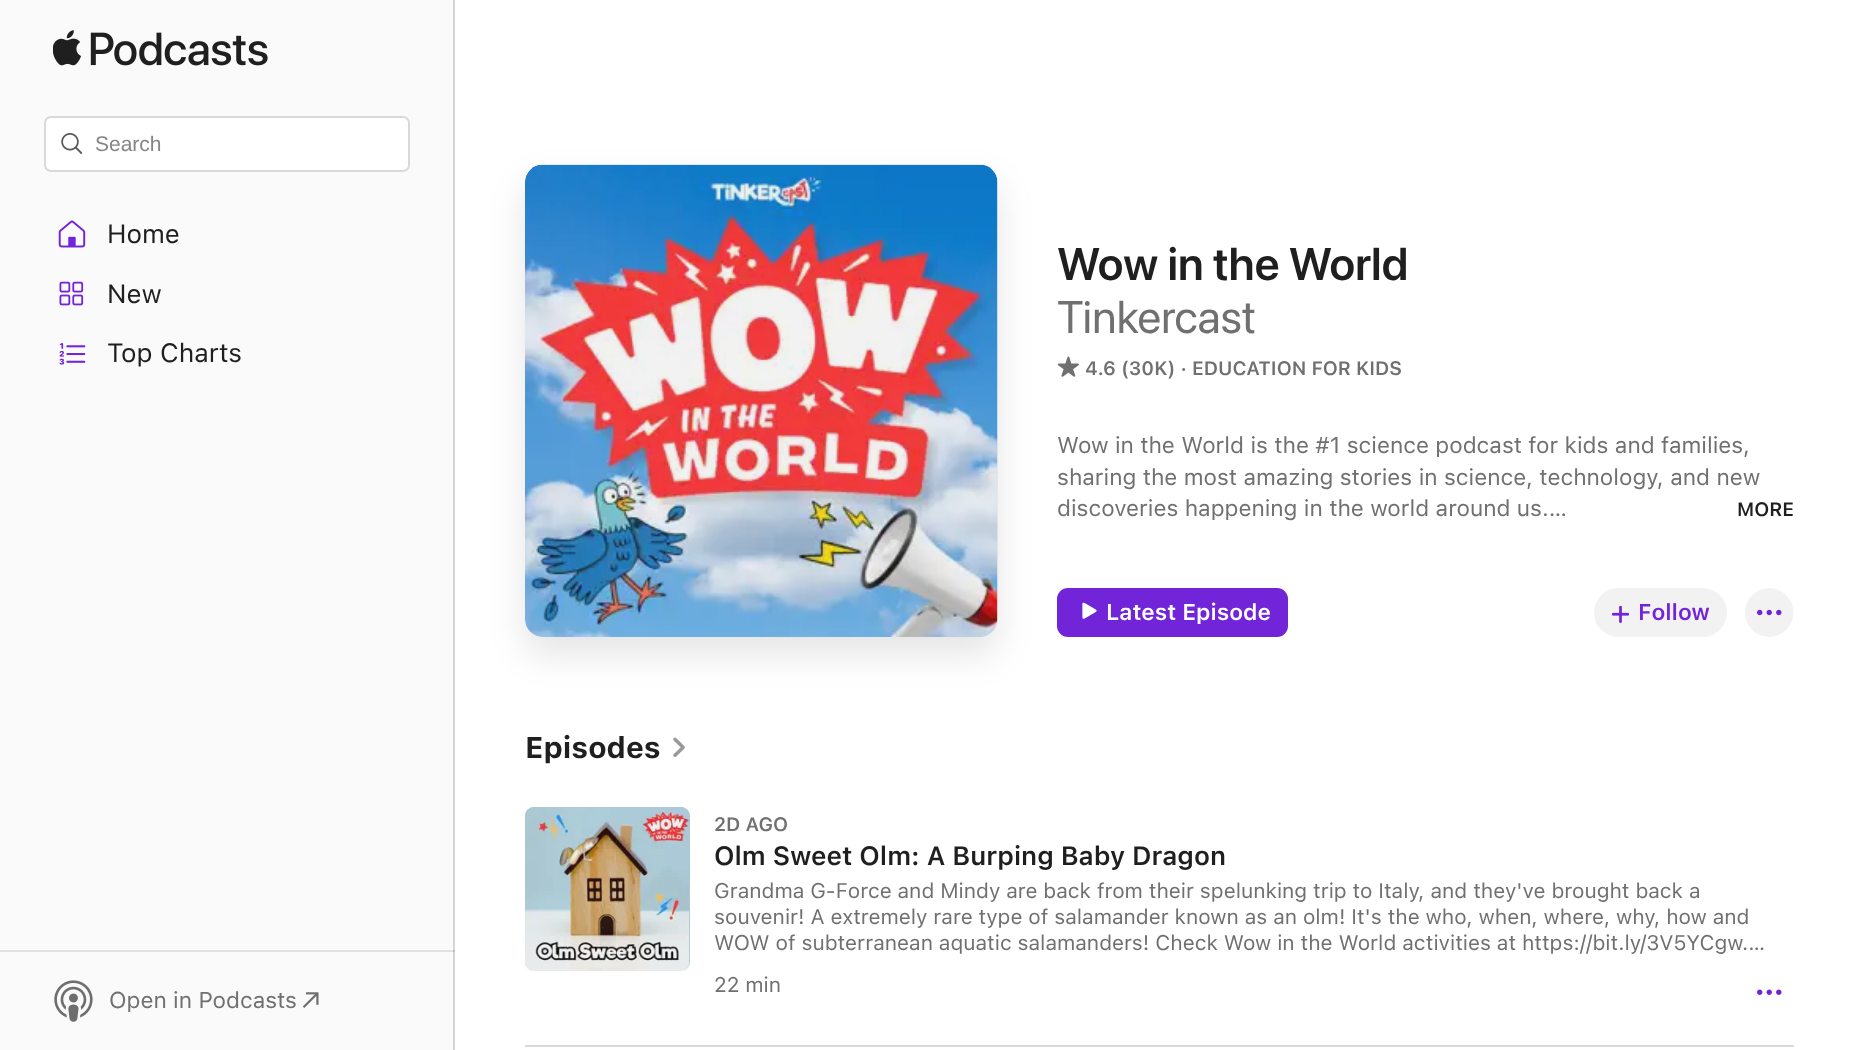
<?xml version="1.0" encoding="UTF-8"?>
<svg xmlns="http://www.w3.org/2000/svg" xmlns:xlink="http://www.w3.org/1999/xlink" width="1863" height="1050">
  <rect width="100%" height="100%" fill="#ffffff" />
  <rect width="453" height="1050" fill="#fafafa" />
  <rect y="950" width="455" height="2" fill="#e1e1e1" />
  <rect x="453" width="2" height="1050" fill="#d5d5d5" />
  <rect x="453" y="950" width="2" height="2" fill="#c0c0c0" />
  <image x="53" y="30" width="215" height="36" xlink:href="image1.png" />
  <rect x="45" y="117" width="364" height="54" rx="6" fill="#ffffff" stroke="#d9d9d9" stroke-width="2" />
  <image x="61" y="133" width="21" height="21" xlink:href="image2.png" />
  <image x="58" y="220" width="28" height="28" xlink:href="image3.png" />
  <image x="59" y="281" width="25" height="25" xlink:href="image4.png" />
  <image x="59" y="343" width="27" height="22" xlink:href="image5.png" />
  <image x="54" y="980" width="39" height="42" xlink:href="image6.png" />
  <image x="303" y="992" width="16" height="16" xlink:href="image7.png" />
  <rect x="525" y="182" width="473" height="473" rx="18" fill="#000000" fill-opacity="0.1" filter="blur(17.5px)" />
  <image x="525" y="164" width="473" height="473" xlink:href="image8.png" />
  <path d="M 543 165 h 437 c 10 0 18 8 18 18 v 436 c 0 10 -8 18 -18 18 h -437 c -10 0 -18 -8 -18 -18 v -436 c 0 -10 8 -18 18 -18 z" fill="#808080" fill-opacity="0.1" />
  <image x="1057" y="356" width="22" height="21" xlink:href="image9.png" />
  <rect x="1057" y="588" width="231" height="49" rx="11" fill="#7224d8" />
  <image x="1082" y="602" width="15" height="17" xlink:href="image10.png" />
  <rect x="1594" y="588" width="133" height="49" rx="24.5" fill="#f2f2f2" />
  <image x="1612" y="606" width="17" height="17" xlink:href="image11.png" />
  <image x="1745" y="588" width="49" height="49" xlink:href="image12.png" />
  <image x="673" y="737" width="12" height="20" xlink:href="image13.png" />
  <rect x="525" y="1045" width="1269" height="2" fill="#d9d9d9" />
  <rect x="525" y="807" width="165" height="164" rx="9" fill="#b0d2dc" />
  <image x="525" y="807" width="165" height="164" xlink:href="image14.png" />
  <path d="M 534 807 h 147 c 5 0 9 4 9 9 v 146 c 0 5 -4 9 -9 9 h -147 c -5 0 -9 -4 -9 -9 v -146 c 0 -5 4 -9 9 -9 z" fill="#808080" fill-opacity="0.1" />
  <image x="1757" y="989" width="25" height="6" xlink:href="image15.png" />
  <text x="95" y="151" style="font-family: Liberation Sans; font-size: 21px; fill: #858585">Search</text>
  <text x="107" y="243" style="font-family: 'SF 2'; font-size: 26.25px; fill: #1f1f1f">Home</text>
  <text x="107" y="303" style="font-family: 'SF 2'; font-size: 26.25px; fill: #1f1f1f">New</text>
  <text x="107" y="362" style="font-family: 'SF 2'; font-size: 26.25px; fill: #1f1f1f">Top Charts</text>
  <text x="109" y="1008" style="font-family: 'SF 2'; font-size: 22.75px; fill: #707070">Open in Podcasts</text>
  <text x="1057" y="280" style="font-family: 'SF 2'; font-size: 45.5px; font-weight: 600; fill: #1f1f1f">Wow in the World</text>
  <text x="1057" y="333" style="font-family: SF; font-size: 45.5px; fill: #707070">Tinkercast</text>
  <text x="1085" y="375" style="font-family: SF; font-size: 19.25px; font-weight: 600; fill: #707070">4.6 (30K) · EDUCATION FOR KIDS</text>
  <text x="1057" y="453" style="font-family: 'SF 2'; font-size: 22.75px; fill: #707070">Wow in the World is the #1 science podcast for kids and families,</text>
  <text x="1057" y="485" style="font-family: 'SF 2'; font-size: 22.75px; fill: #707070">sharing the most amazing stories in science, technology, and new</text>
  <text x="1057" y="516" style="font-family: 'SF 2'; font-size: 22.75px; fill: #707070">discoveries happening in the world around us.…</text>
  <text x="1737" y="516" style="font-family: SF; font-size: 19.25px; font-weight: 600; fill: #1f1f1f">MORE</text>
  <text x="1106" y="620" style="font-family: SF; font-size: 22.75px; font-weight: 600; fill: #ffffff">Latest Episode</text>
  <text x="1638" y="620" style="font-family: SF; font-size: 22.75px; font-weight: 600; fill: #7224d8">Follow</text>
  <text x="525" y="758" style="font-family: SF; font-size: 29.75px; font-weight: bold; fill: #1f1f1f">Episodes</text>
  <text x="714" y="831" style="font-family: SF; font-size: 19.25px; font-weight: 600; fill: #707070">2D AGO</text>
  <text x="714" y="865" style="font-family: SF; font-size: 26.25px; font-weight: 600; fill: #1f1f1f">Olm Sweet Olm: A Burping Baby Dragon</text>
  <text x="714" y="898" style="font-family: 'SF 2'; font-size: 21px; fill: #707070">Grandma G-Force and Mindy are back from their spelunking trip to Italy, and they've brought back a</text>
  <text x="714" y="924" style="font-family: 'SF 2'; font-size: 21px; fill: #707070">souvenir! A extremely rare type of salamander known as an olm! It's the who, when, where, why, how and</text>
  <text x="714" y="950" style="font-family: 'SF 2'; font-size: 21px; fill: #707070">WOW of subterranean aquatic salamanders! Check Wow in the World activities at https://bit.ly/3V5YCgw.…</text>
  <text x="714" y="992" style="font-family: 'SF 2'; font-size: 21px; fill: #707070">22 min</text>
</svg>
